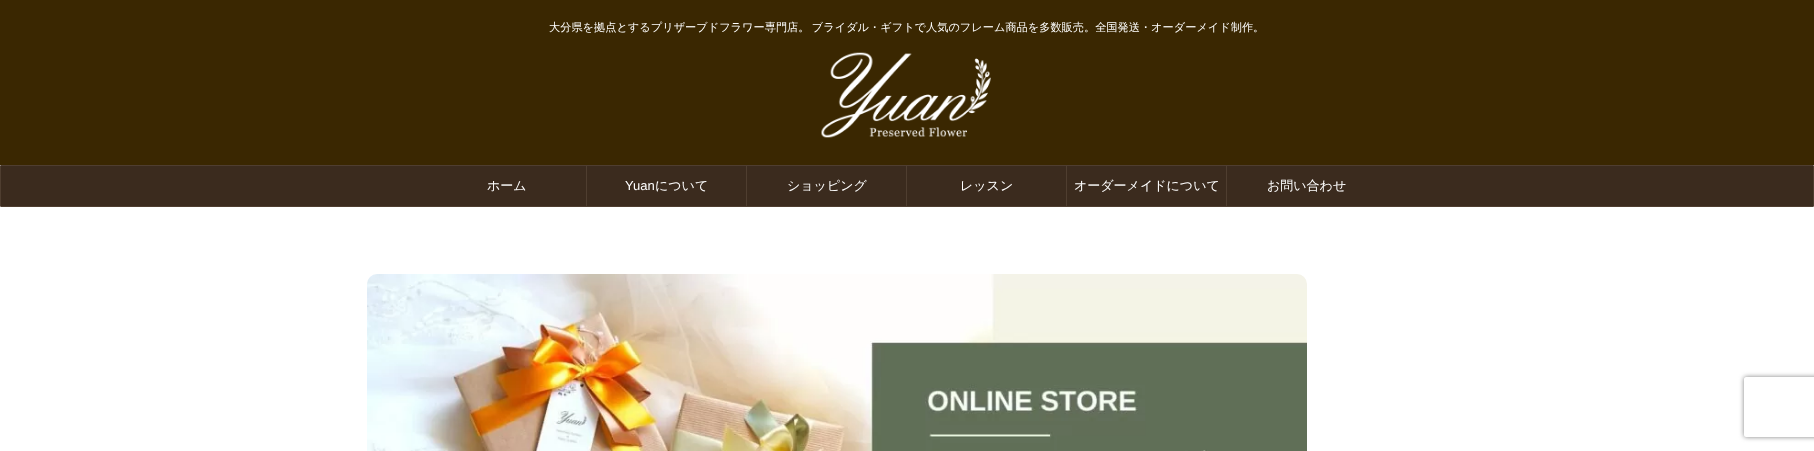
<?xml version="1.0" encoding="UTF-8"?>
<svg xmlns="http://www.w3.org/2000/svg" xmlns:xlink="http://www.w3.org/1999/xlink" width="1814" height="451">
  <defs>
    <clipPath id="clip1"><path d="M 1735 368 h 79 v 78 h -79 z m 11 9 h 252 c 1 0 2 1 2 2 v 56 c 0 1 -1 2 -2 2 h -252 c -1 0 -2 -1 -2 -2 v -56 c 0 -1 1 -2 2 -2 z" clip-rule="evenodd" /></clipPath>
  </defs>
  <rect width="100%" height="100%" fill="#ffffff" />
  <rect width="1814" height="165" fill="#3a2701" />
  <image x="821" y="52" width="170" height="86" xlink:href="image1.png" />
  <rect x="0.5" y="165.5" width="1813" height="41" rx="0.5" fill="#3b2b1e" stroke="#4f3e30" />
  <rect x="586" y="166" width="1" height="40" fill="#4f3e30" />
  <rect x="746" y="166" width="1" height="40" fill="#4f3e30" />
  <rect x="906" y="166" width="1" height="40" fill="#4f3e30" />
  <rect x="1066" y="166" width="1" height="40" fill="#4f3e30" />
  <rect x="1226" y="166" width="1" height="40" fill="#4f3e30" />
  <image x="367" y="274" width="940" height="177" xlink:href="image2.png" />
  <g clip-path="url(#clip1)">
    <rect x="1744" y="377" width="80" height="60" rx="2" fill="#808080" filter="blur(2.5px)" />
  </g>
  <text x="549" y="31" word-spacing="-1" style="font-family: WenQuanYi Zen Hei; font-size: 11.2px; font-weight: 500; fill: #ffffff">大分県を拠点とするプリザーブドフラワー専門店。 ブライダル・ギフトで人気のフレーム商品を多数販売。全国発送・オーダーメイド制作。</text>
  <text x="487" y="190" style="font-family: WenQuanYi Zen Hei; font-size: 13px; font-weight: 500; fill: #ffffff">ホーム</text>
  <text x="625" y="190" style="font-family: Liberation Sans; font-size: 13px; fill: #ffffff">Yuan</text>
  <text x="655" y="190" style="font-family: WenQuanYi Zen Hei; font-size: 13px; font-weight: 500; fill: #ffffff">について</text>
  <text x="787" y="190" style="font-family: WenQuanYi Zen Hei; font-size: 13px; font-weight: 500; fill: #ffffff">ショッピング</text>
  <text x="960" y="190" style="font-family: WenQuanYi Zen Hei; font-size: 13px; font-weight: 500; fill: #ffffff">レッスン</text>
  <text x="1074" y="190" style="font-family: WenQuanYi Zen Hei; font-size: 13px; font-weight: 500; fill: #ffffff">オーダーメイドについて</text>
  <text x="1267" y="190" style="font-family: WenQuanYi Zen Hei; font-size: 13px; font-weight: 500; fill: #ffffff">お問い合わせ</text>
</svg>
